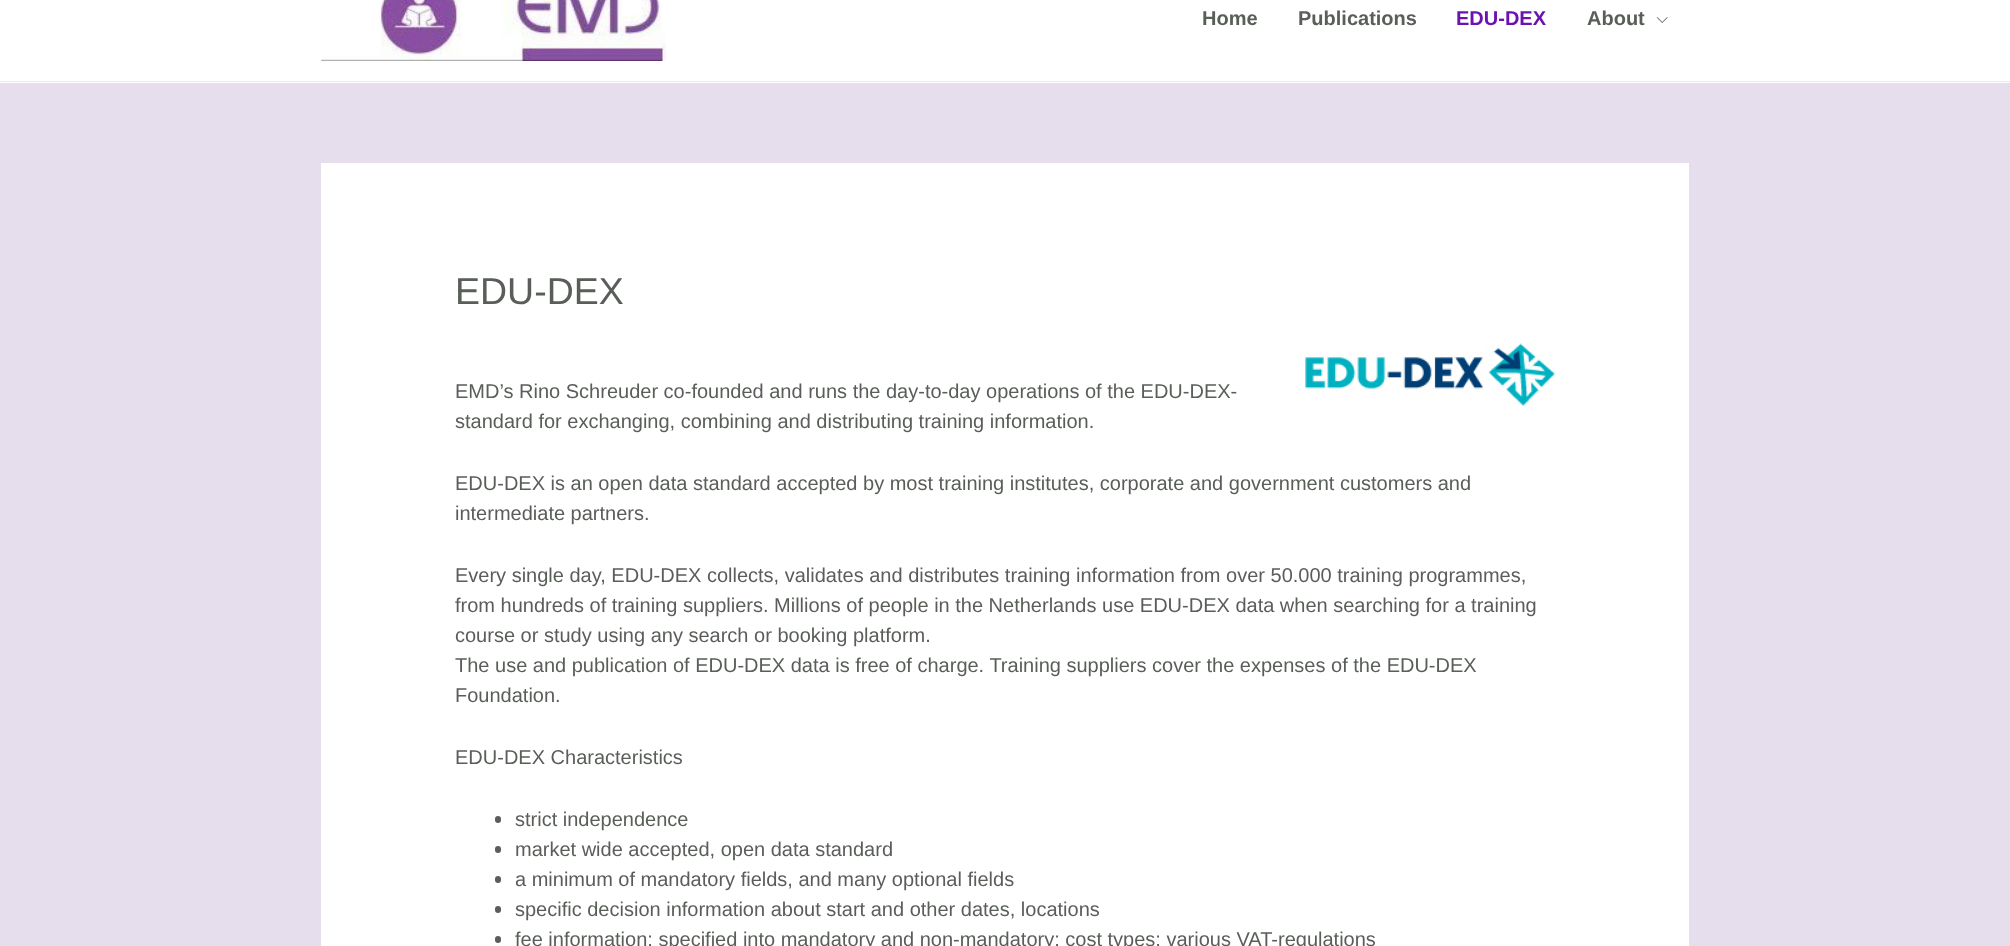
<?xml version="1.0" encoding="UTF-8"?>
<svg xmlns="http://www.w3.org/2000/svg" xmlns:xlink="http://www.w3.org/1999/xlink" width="2010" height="946">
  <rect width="100%" height="100%" fill="#e6dded" />
  <rect width="2010" height="83" fill="#ffffff" />
  <rect y="81" width="2010" height="1" fill="#eaeaea" />
  <image x="321" y="0" width="346" height="61" xlink:href="image1.png" />
  <image x="1656" y="17" width="12" height="6" xlink:href="image2.png" />
  <rect x="321" y="163" width="1368" height="783" fill="#ffffff" />
  <image x="1305" y="343" width="250" height="63" xlink:href="image3.png" />
  <rect x="495" y="816" width="6" height="7" rx="3" fill="#595e58" />
  <rect x="495" y="846" width="6" height="7" rx="3" fill="#595e58" />
  <rect x="495" y="876" width="6" height="7" rx="3" fill="#595e58" />
  <rect x="495" y="906" width="6" height="7" rx="3" fill="#595e58" />
  <rect x="495" y="936" width="6" height="7" rx="3" fill="#595e58" />
  <text x="1202" y="25" style="font-family: Liberation Sans; font-size: 20px; font-weight: bold; fill: #595e58">Home</text>
  <text x="1298" y="25" style="font-family: Liberation Sans; font-size: 20px; font-weight: bold; fill: #595e58">Publications</text>
  <text x="1456" y="25" style="font-family: Liberation Sans; font-size: 20px; font-weight: bold; fill: #6c13af">EDU-DEX</text>
  <text x="1587" y="25" style="font-family: Liberation Sans; font-size: 20px; font-weight: bold; fill: #595e58">About</text>
  <text x="455" y="304" style="font-family: Liberation Sans; font-size: 37.5px; fill: #595e58">EDU-DEX</text>
  <text x="455" y="398" style="font-family: Liberation Sans; font-size: 20px; fill: #595e58">EMD’s Rino Schreuder co-founded and runs the day-to-day operations of the EDU-DEX-</text>
  <text x="455" y="428" style="font-family: Liberation Sans; font-size: 20px; fill: #595e58">standard for exchanging, combining and distributing training information.</text>
  <text x="455" y="490" style="font-family: Liberation Sans; font-size: 20px; fill: #595e58">EDU-DEX is an open data standard accepted by most training institutes, corporate and government customers and</text>
  <text x="455" y="520" style="font-family: Liberation Sans; font-size: 20px; fill: #595e58">intermediate partners.</text>
  <text x="455" y="582" style="font-family: Liberation Sans; font-size: 20px; fill: #595e58">Every single day, EDU-DEX collects, validates and distributes training information from over 50.000 training programmes,</text>
  <text x="455" y="612" style="font-family: Liberation Sans; font-size: 20px; fill: #595e58">from hundreds of training suppliers. Millions of people in the Netherlands use EDU-DEX data when searching for a training</text>
  <text x="455" y="642" style="font-family: Liberation Sans; font-size: 20px; fill: #595e58">course or study using any search or booking platform.</text>
  <text x="455" y="672" style="font-family: Liberation Sans; font-size: 20px; fill: #595e58">The use and publication of EDU-DEX data is free of charge. Training suppliers cover the expenses of the EDU-DEX</text>
  <text x="455" y="702" style="font-family: Liberation Sans; font-size: 20px; fill: #595e58">Foundation.</text>
  <text x="455" y="764" style="font-family: Liberation Sans; font-size: 20px; fill: #595e58">EDU-DEX Characteristics</text>
  <text x="515" y="826" style="font-family: Liberation Sans; font-size: 20px; fill: #595e58">strict independence</text>
  <text x="515" y="856" style="font-family: Liberation Sans; font-size: 20px; fill: #595e58">market wide accepted, open data standard</text>
  <text x="515" y="886" style="font-family: Liberation Sans; font-size: 20px; fill: #595e58">a minimum of mandatory fields, and many optional fields</text>
  <text x="515" y="916" style="font-family: Liberation Sans; font-size: 20px; fill: #595e58">specific decision information about start and other dates, locations</text>
  <text x="515" y="946" style="font-family: Liberation Sans; font-size: 20px; fill: #595e58">fee information; specified into mandatory and non-mandatory; cost types; various VAT-regulations</text>
</svg>
